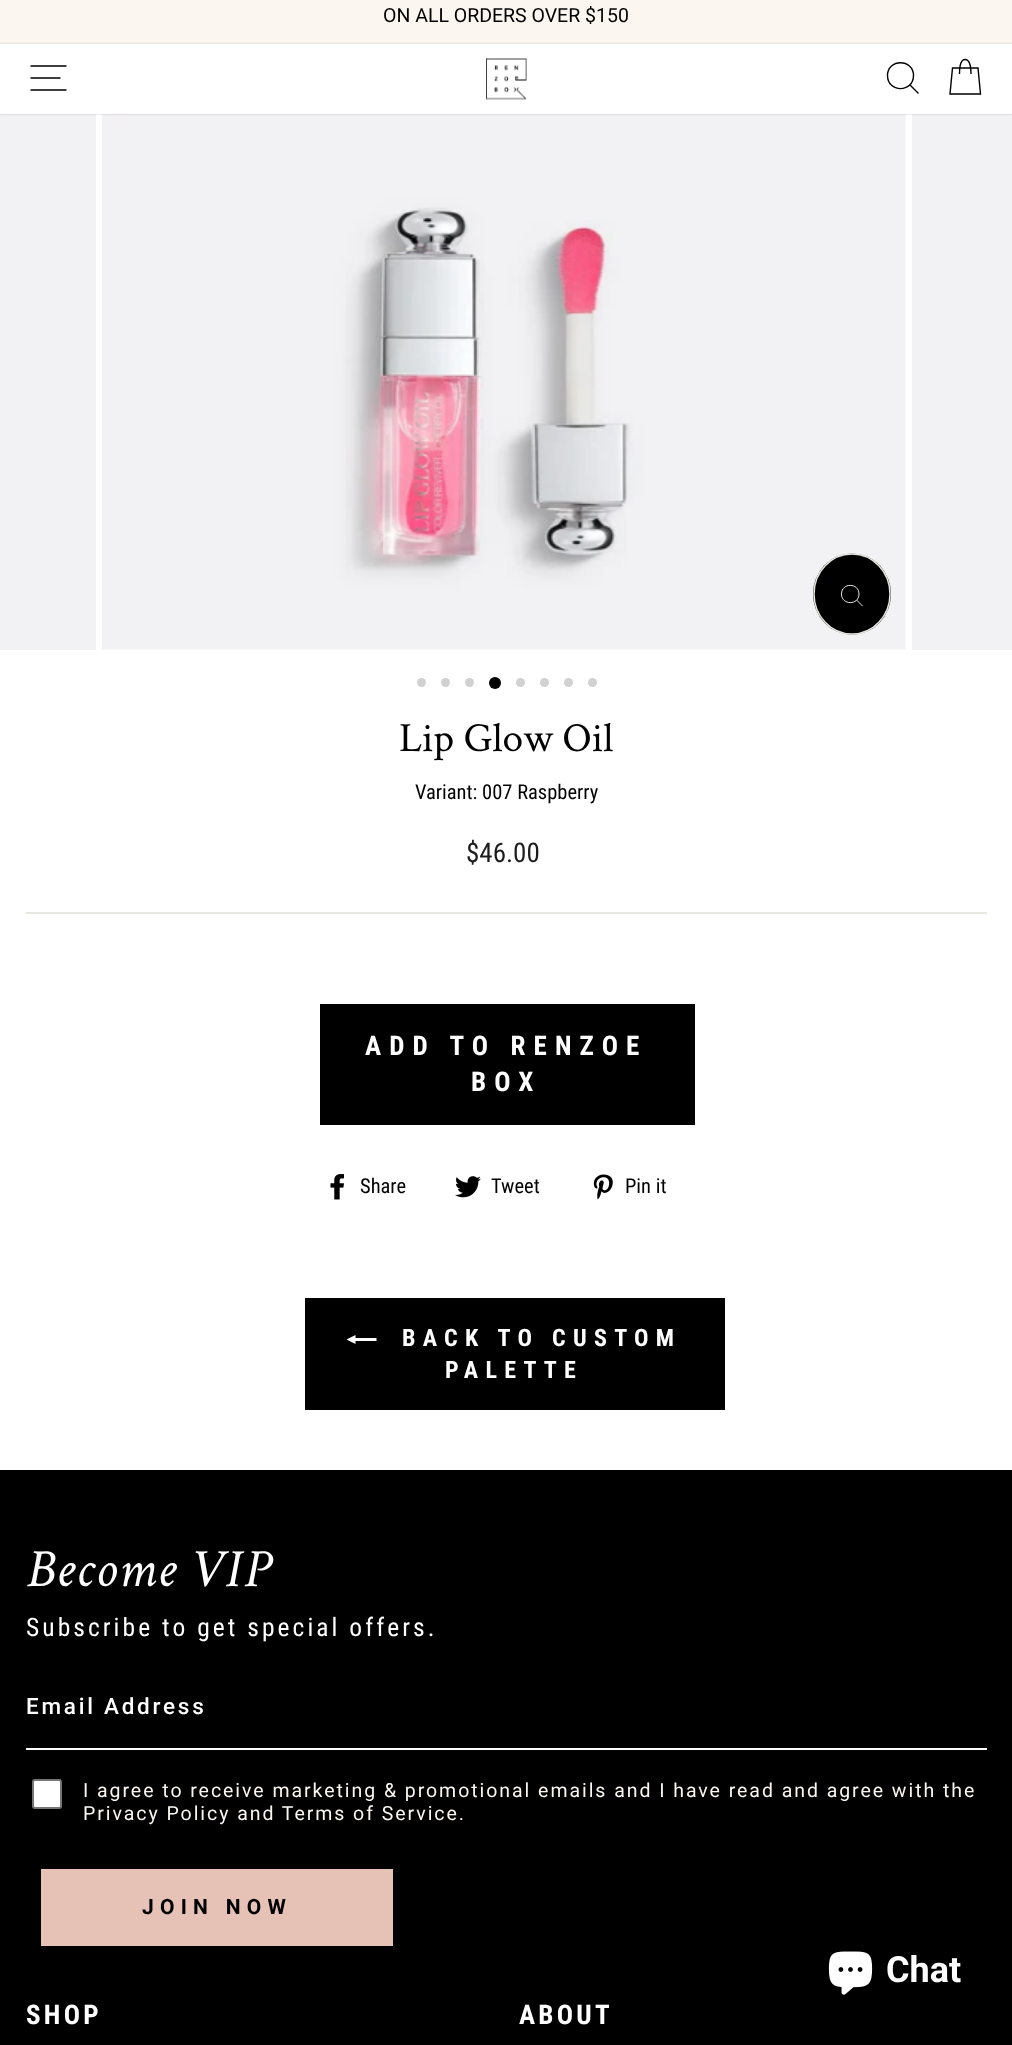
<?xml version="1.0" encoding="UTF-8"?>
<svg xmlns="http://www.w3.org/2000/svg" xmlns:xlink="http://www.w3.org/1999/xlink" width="1012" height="2045">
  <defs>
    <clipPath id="clip1"><path d="M 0 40 h 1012 v 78 h -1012 z m 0 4 h 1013 v 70 h -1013 z" clip-rule="evenodd" /></clipPath>
  </defs>
  <rect width="100%" height="100%" fill="#ffffff" />
  <rect width="1012" height="44" fill="#fbf6f0" />
  <rect y="114" width="96" height="536" fill="#f2f2f4" />
  <image x="102" y="114" width="804" height="536" xlink:href="image2.png" />
  <rect x="912" y="114" width="100" height="536" fill="#f2f2f4" />
  <g clip-path="url(#clip1)">
    <rect y="44" width="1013" height="70" fill="#000000" fill-opacity="0.2" filter="blur(1px)" />
  </g>
  <path d="M 30.5 66 h 36 m -36 12 h 30 m -30 12 h 36" fill="none" stroke="#000000" stroke-width="1.4" />
  <image x="486" y="58" width="41" height="42" xlink:href="image1.png" />
  <path d="M 913.5 75.5 c 0 17.5 -26 17.5 -26 0 c 0 -17 26 -17 26 0 z m 5 18 l -8.5 -8.5" fill="none" stroke="#000000" stroke-width="1.4" />
  <path d="M 959.5 74 c 0 -11.5 2.5 -14.5 5.5 -14.5 c 3.5 0 6 3 6 14.5 m -18.5 -6 h 25.5 l 2.5 26 h -30.5 z" fill="none" stroke="#000000" stroke-width="1.4" />
  <ellipse cx="852" cy="594" rx="39" ry="40.5" fill="#000000" />
  <path d="M 852 554 c 21 0 38 18 38 40 c 0 22 -17 40 -38 40 c -21 0 -38 -18 -38 -40 c 0 -22 17 -40 38 -40 z" fill="none" stroke="#e8e8e1" stroke-width="1.5" />
  <path d="M 859 594 c 0 11.5 -17.5 11.5 -17.5 0 c 0 -11.5 17.5 -11.5 17.5 0 z m 3.5 12 l -6 -6" fill="none" stroke="#ffffff" stroke-width="0.9" />
  <circle cx="421.5" cy="682.5" r="4.5" fill="#d1d1d1" />
  <circle cx="445.5" cy="682.5" r="4.5" fill="#d1d1d1" />
  <circle cx="469.5" cy="682.5" r="4.5" fill="#d1d1d1" />
  <circle cx="495" cy="683" r="6" fill="#000000" />
  <circle cx="520.5" cy="682.5" r="4.5" fill="#d1d1d1" />
  <circle cx="544.5" cy="682.5" r="4.5" fill="#d1d1d1" />
  <circle cx="568.5" cy="682.5" r="4.5" fill="#d1d1d1" />
  <circle cx="592.5" cy="682.5" r="4.5" fill="#d1d1d1" />
  <rect x="26" y="912" width="961" height="2" fill="#e8e8e1" />
  <rect x="320" y="1004" width="375" height="121" fill="#000000" />
  <image x="330" y="1174" width="14" height="26" xlink:href="image3.png" />
  <image x="455" y="1176" width="26" height="22" xlink:href="image4.png" />
  <image x="593" y="1174" width="20" height="26" xlink:href="image5.png" />
  <rect x="305" y="1298" width="420" height="112" fill="#000000" />
  <path d="M 376.5 1338 v 3 h -21 v 3 l -9 -4.5 l 9 -4.5 v 3 z" fill="#ffffff" />
  <rect y="1470" width="1012" height="575" fill="#000000" />
  <rect x="26" y="1748" width="961" height="2" fill="#ffffff" />
  <rect x="33" y="1780" width="28" height="28" rx="2" fill="#ffffff" stroke="#767676" stroke-width="2" />
  <rect x="41" y="1869" width="352" height="77" fill="#e5c2b5" />
  <image x="828" y="1951" width="45" height="44" xlink:href="image6.png" />
  <text x="383" y="22" style="font-family: Roboto; font-size: 19.5px; fill: #000000">ON ALL ORDERS OVER $150</text>
  <text x="399" y="751" style="font-family: Crimson Text; font-size: 41.5px; fill: #000000">Lip Glow Oil</text>
  <text x="415" y="799" style="font-family: Roboto Condensed; font-size: 20.5px; fill: #000000">Variant: 007 Raspberry</text>
  <text x="466" y="862" style="font-family: Roboto Condensed; font-size: 27px; fill: #1c1d1d">$46.00</text>
  <text x="365" y="1055" style="font-family: Roboto Condensed; font-size: 27px; font-weight: bold; letter-spacing: 8.1px; fill: #ffffff">ADD TO RENZOE</text>
  <text x="471" y="1091" style="font-family: Roboto Condensed; font-size: 27px; font-weight: bold; letter-spacing: 8.1px; fill: #ffffff">BOX</text>
  <text x="360" y="1193" style="font-family: Roboto Condensed; font-size: 20.5px; fill: #000000">Share</text>
  <text x="491" y="1193" style="font-family: Roboto Condensed; font-size: 20.5px; fill: #000000">Tweet</text>
  <text x="625" y="1193" style="font-family: Roboto Condensed; font-size: 20.5px; fill: #000000">Pin it</text>
  <text x="402" y="1346" style="font-family: Roboto Condensed; font-size: 24px; font-weight: bold; letter-spacing: 7.25px; fill: #ffffff">BACK TO CUSTOM</text>
  <text x="445" y="1378" style="font-family: Roboto Condensed; font-size: 24px; font-weight: bold; letter-spacing: 7.25px; fill: #ffffff">PALETTE</text>
  <text x="26" y="1586" style="font-family: Crimson Text; font-size: 54px; font-style: italic; letter-spacing: 1px; fill: #ffffff">Become VIP</text>
  <text x="26" y="1636" style="font-family: Roboto Condensed; font-size: 25.5px; letter-spacing: 3.05px; fill: #ffffff">Subscribe to get special offers.</text>
  <text x="26" y="1714" style="font-family: Roboto; font-size: 22.5px; font-weight: 500; letter-spacing: 2.75px; fill: #ffffff">Email Address</text>
  <text x="83" y="1797" style="font-family: Roboto; font-size: 19.5px; letter-spacing: 1.95px; fill: #fbf6f0">I agree to receive marketing &amp; promotional emails and I have read and agree with the</text>
  <text x="83" y="1820" style="font-family: Roboto; font-size: 19.5px; letter-spacing: 1.95px; fill: #fbf6f0">Privacy Policy and Terms of Service.</text>
  <text x="142" y="1914" style="font-family: Roboto; font-size: 21px; font-weight: bold; letter-spacing: 6.25px; fill: #000000">JOIN NOW</text>
  <text x="26" y="2024" style="font-family: Roboto Condensed; font-size: 27px; font-weight: bold; letter-spacing: 3.25px; fill: #ffffff">SHOP</text>
  <text x="519" y="2024" style="font-family: Roboto Condensed; font-size: 27px; font-weight: bold; letter-spacing: 3.25px; fill: #ffffff">ABOUT</text>
  <text x="886" y="1982" style="font-family: Roboto; font-size: 36px; font-weight: bold; fill: #ffffff">Chat</text>
</svg>
